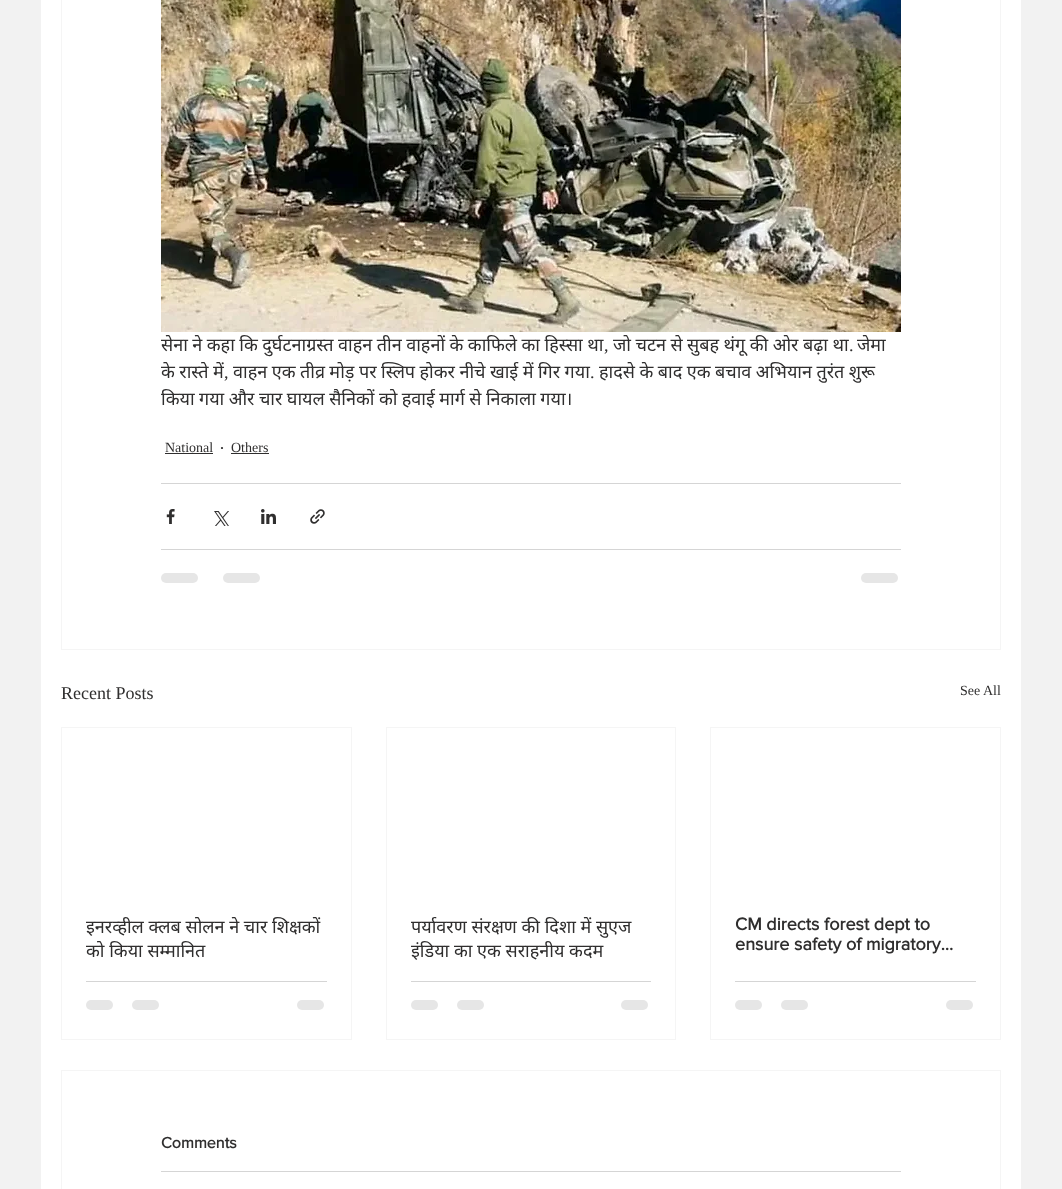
<?xml version="1.0" encoding="UTF-8"?>
<svg xmlns="http://www.w3.org/2000/svg" xmlns:xlink="http://www.w3.org/1999/xlink" width="1062" height="1189">
  <defs>
    <clipPath id="clip1"><rect x="86" y="914" width="241" height="48" /></clipPath>
    <clipPath id="clip2"><rect x="411" y="914" width="240" height="48" /></clipPath>
  </defs>
  <rect width="100%" height="100%" fill="#f2f2f2" />
  <rect x="41" width="980" height="1189" fill="#ffffff" />
  <rect x="61.5" y="-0.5" width="939" height="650" fill="none" stroke="#f5f5f5" />
  <image x="161" y="0" width="740" height="332" xlink:href="image1.png" />
  <rect x="165" y="453" width="48" height="1" fill="#2f2e2e" />
  <rect x="231" y="453" width="38" height="1" fill="#2f2e2e" />
  <rect x="161" y="483" width="740" height="1" fill="#d5d5d5" />
  <image x="166" y="509" width="9" height="15" xlink:href="image2.png" />
  <image x="214" y="511" width="15" height="15" xlink:href="image3.png" />
  <image x="261" y="509" width="15" height="15" xlink:href="image4.png" />
  <image x="310" y="509" width="15" height="15" xlink:href="image5.png" />
  <rect x="161" y="549" width="740" height="1" fill="#d5d5d5" />
  <rect x="161" y="573" width="37" height="10" rx="5" fill="#e6e6e6" />
  <rect x="223" y="573" width="37" height="10" rx="5" fill="#e6e6e6" />
  <rect x="861" y="573" width="37" height="10" rx="5" fill="#e6e6e6" />
  <rect x="61.5" y="727.5" width="290" height="312" fill="none" stroke="#f5f5f5" />
  <rect x="86" y="981" width="241" height="1" fill="#d5d5d5" />
  <rect x="86" y="1000" width="27" height="10" rx="5" fill="#e6e6e6" />
  <rect x="132" y="1000" width="27" height="10" rx="5" fill="#e6e6e6" />
  <rect x="297" y="1000" width="27" height="10" rx="5" fill="#e6e6e6" />
  <rect x="386.5" y="727.5" width="289" height="312" fill="none" stroke="#f5f5f5" />
  <rect x="411" y="981" width="240" height="1" fill="#d5d5d5" />
  <rect x="411" y="1000" width="27" height="10" rx="5" fill="#e6e6e6" />
  <rect x="457" y="1000" width="27" height="10" rx="5" fill="#e6e6e6" />
  <rect x="621" y="1000" width="27" height="10" rx="5" fill="#e6e6e6" />
  <rect x="710.5" y="727.5" width="290" height="312" fill="none" stroke="#f5f5f5" />
  <rect x="735" y="981" width="241" height="1" fill="#d5d5d5" />
  <rect x="735" y="1000" width="27" height="10" rx="5" fill="#e6e6e6" />
  <rect x="781" y="1000" width="27" height="10" rx="5" fill="#e6e6e6" />
  <rect x="946" y="1000" width="27" height="10" rx="5" fill="#e6e6e6" />
  <rect x="61.5" y="1070.5" width="939" height="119" fill="none" stroke="#f5f5f5" />
  <rect x="161" y="1171" width="740" height="1" fill="#d5d5d5" />
  <text x="161" y="351" word-spacing="-0.2" style="font-family: Noto Sans; font-size: 18px; fill: #2f2e2e">सेना ने कहा कि दुर्घटनाग्रस्त वाहन तीन वाहनों के काफिले का हिस्सा था</text>
  <text x="613" y="351" word-spacing="-0.2" style="font-family: Noto Sans; font-size: 18px; fill: #2f2e2e">जो चटन से सुबह थंगू की ओर बढ़ा था</text>
  <text x="604" y="351" style="font-family: Liberation Serif; font-size: 18px; fill: #2f2e2e">,</text>
  <text x="849" y="351" style="font-family: Liberation Serif; font-size: 18px; fill: #2f2e2e">.</text>
  <text x="857" y="351" style="font-family: Noto Sans; font-size: 18px; fill: #2f2e2e">जेमा</text>
  <text x="161" y="378" word-spacing="-0.2" style="font-family: Noto Sans; font-size: 18px; fill: #2f2e2e">के रास्ते में</text>
  <text x="224" y="378" style="font-family: Liberation Serif; font-size: 18px; fill: #2f2e2e">,</text>
  <text x="233" y="378" word-spacing="-0.2" style="font-family: Noto Sans; font-size: 18px; fill: #2f2e2e">वाहन एक तीव्र मोड़ पर स्लिप होकर नीचे खाई में गिर गया</text>
  <text x="590" y="378" style="font-family: Liberation Serif; font-size: 18px; fill: #2f2e2e">.</text>
  <text x="599" y="378" word-spacing="-0.2" style="font-family: Noto Sans; font-size: 18px; fill: #2f2e2e">हादसे के बाद एक बचाव अभियान तुरंत शुरू</text>
  <text x="161" y="405" word-spacing="-0.25" style="font-family: Noto Sans; font-size: 18px; fill: #2f2e2e">किया गया और चार घायल सैनिकों को हवाई मार्ग से निकाला गया।</text>
  <text x="165" y="452" style="font-family: Liberation Serif; font-size: 14px; fill: #2f2e2e">National</text>
  <text x="219" y="454" style="font-family: Liberation Serif; font-size: 18px; fill: #2f2e2e">·</text>
  <text x="231" y="452" style="font-family: Liberation Serif; font-size: 14px; fill: #2f2e2e">Others</text>
  <text x="61" y="699" style="font-family: Liberation Serif; font-size: 18px; fill: #2f2e2e">Recent Posts</text>
  <text x="960" y="695" style="font-family: Liberation Serif; font-size: 14px; fill: #2f2e2e">See All</text>
  <text x="86" y="933" style="font-family: Noto Sans; font-size: 18px; fill: #2f2e2e">इनरव्हील क्लब सोलन ने चार शिक्षकों</text>
  <g clip-path="url(#clip1)">
    <text x="86" y="957" style="font-family: Noto Sans; font-size: 18px; fill: #2f2e2e">को किया सम्मानित</text>
  </g>
  <text x="411" y="933" style="font-family: Noto Sans; font-size: 18px; fill: #2f2e2e">पर्यावरण संरक्षण की दिशा में सुएज</text>
  <g clip-path="url(#clip2)">
    <text x="411" y="957" style="font-family: Noto Sans; font-size: 18px; fill: #2f2e2e">इंडिया का एक सराहनीय कदम</text>
  </g>
  <text x="735" y="930" style="font-family: 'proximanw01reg'; font-size: 18px; font-weight: bold; fill: #2f2e2e">CM directs forest dept to</text>
  <text x="735" y="950" style="font-family: 'proximanw01reg'; font-size: 18px; font-weight: bold; fill: #2f2e2e">ensure safety of migratory…</text>
  <text x="161" y="1148" style="font-family: 'proximanw01reg'; font-size: 16px; font-weight: bold; fill: #2f2e2e">Comments</text>
</svg>
